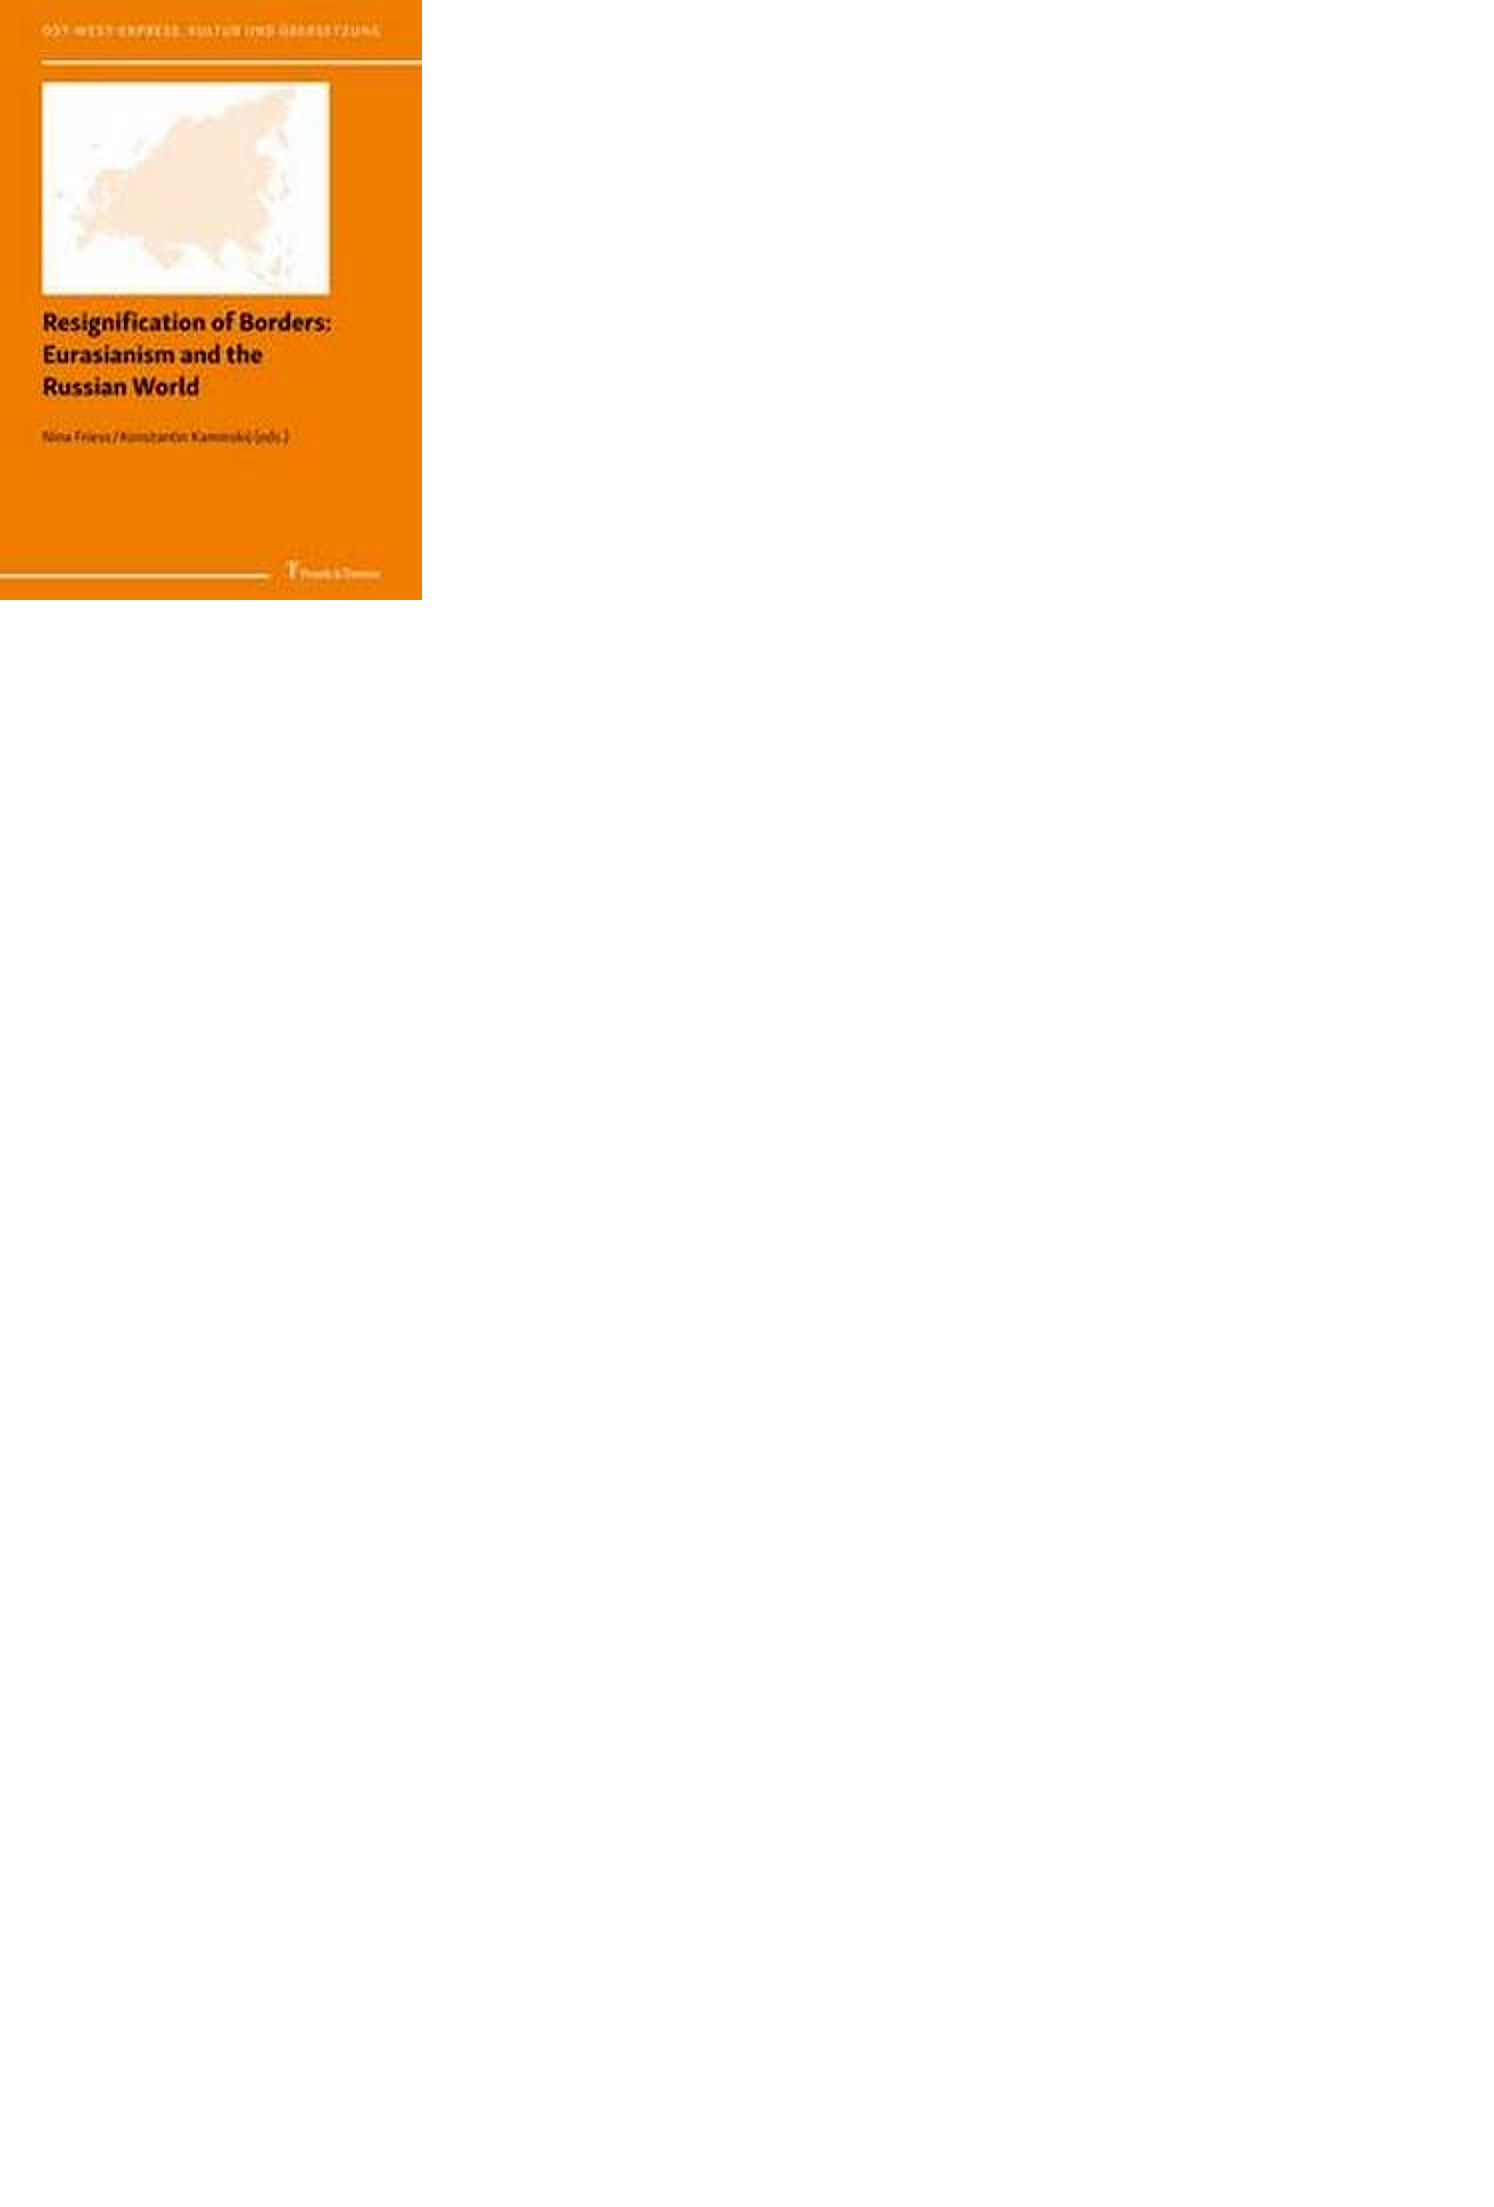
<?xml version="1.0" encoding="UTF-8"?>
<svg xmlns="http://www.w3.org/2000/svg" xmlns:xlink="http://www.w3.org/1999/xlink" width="1494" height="2207">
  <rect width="100%" height="100%" fill="#ffffff" />
  <image x="0" y="0" width="422" height="600" xlink:href="image1.png" />
</svg>
